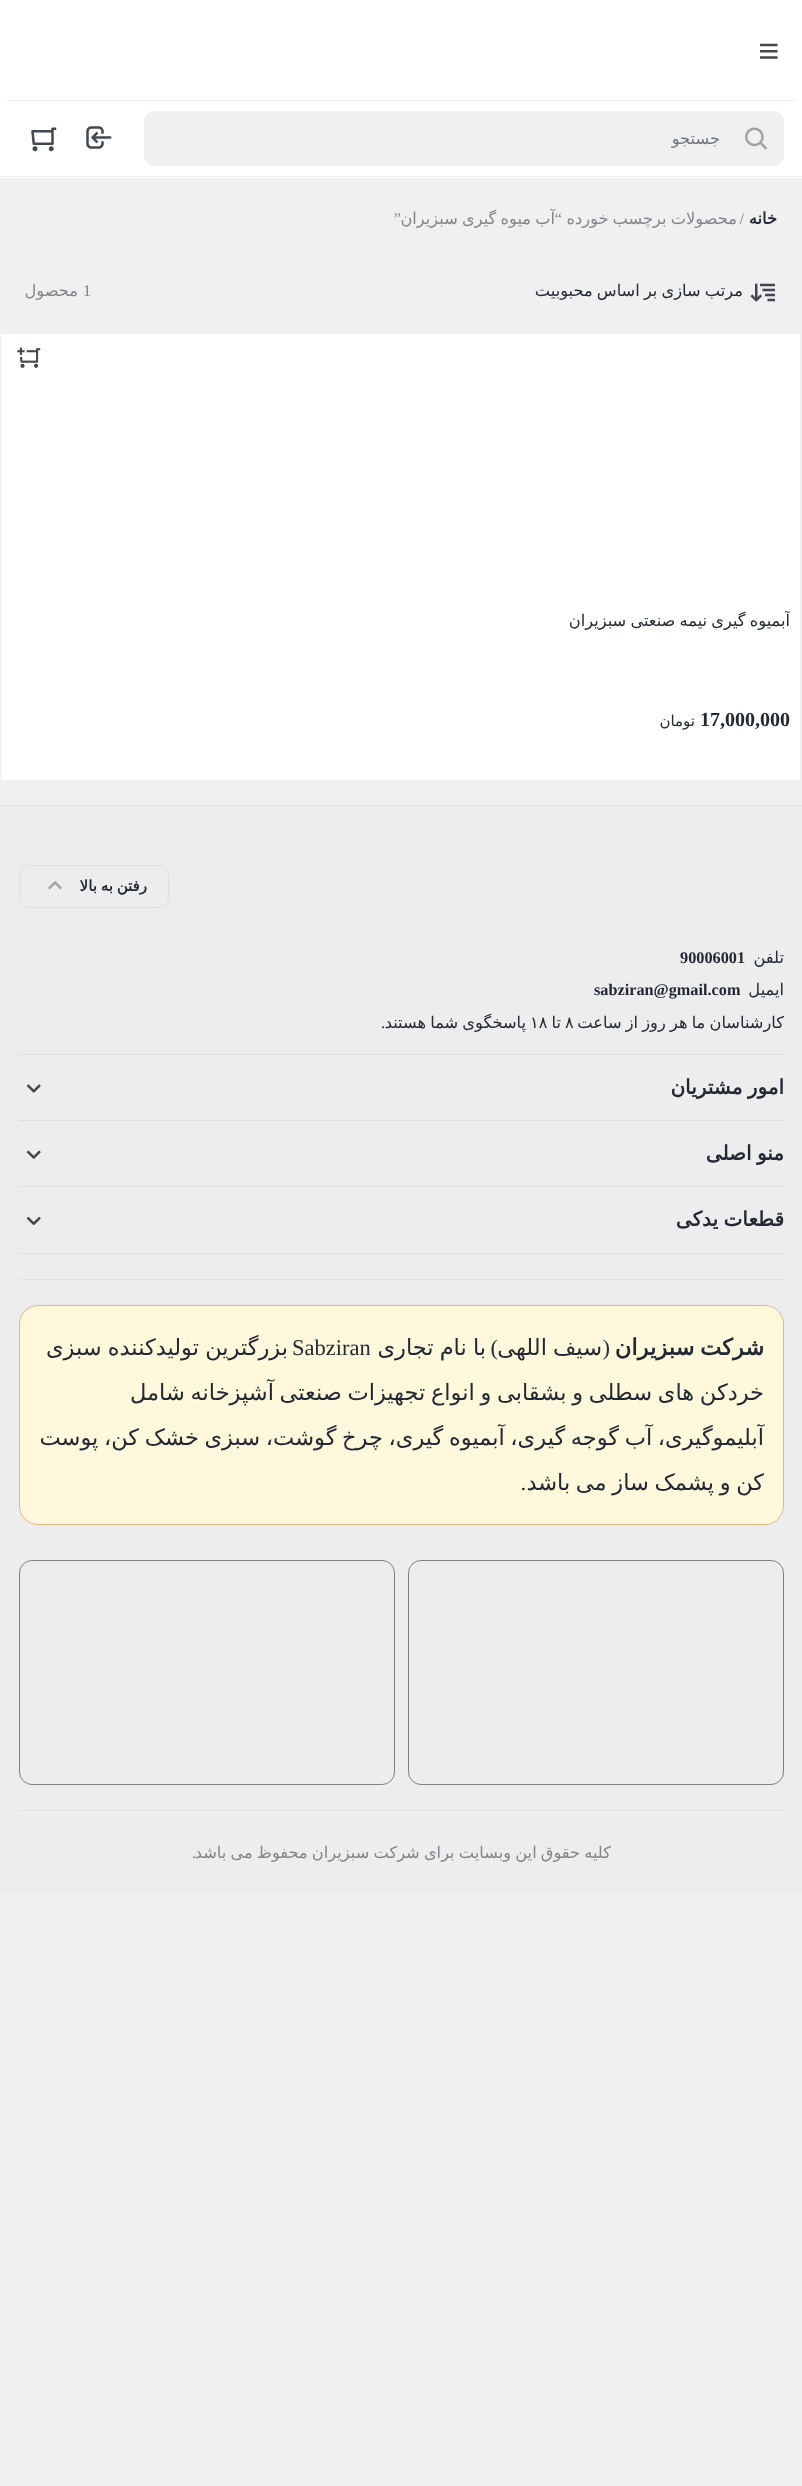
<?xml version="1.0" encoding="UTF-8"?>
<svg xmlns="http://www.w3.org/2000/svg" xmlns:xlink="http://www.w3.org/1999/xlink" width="802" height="2486">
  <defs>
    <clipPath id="clip1"><rect x="11" y="608" width="779" height="82" /></clipPath>
  </defs>
  <rect width="100%" height="100%" fill="#f0f0f1" />
  <rect width="802" height="178" fill="#ffffff" />
  <rect y="176" width="802" height="1" fill="#f0f0f1" />
  <rect x="6" y="100" width="790" height="1" fill="#f0f0f1" />
  <image x="760" y="43" width="18" height="16" xlink:href="image1.png" />
  <rect x="144.5" y="111.5" width="639" height="54" rx="9.5" fill="#f0f0f1" stroke="#f0f0f1" />
  <image x="745" y="127" width="23" height="23" xlink:href="image2.png" />
  <image x="86" y="126" width="26" height="23" xlink:href="image3.png" />
  <image x="31" y="127" width="26" height="25" xlink:href="image4.png" />
  <image x="750" y="283" width="25" height="19" xlink:href="image5.png" />
  <rect x="1" y="334" width="799" height="446" fill="#ffffff" />
  <image x="17" y="347" width="24" height="21" xlink:href="image6.png" />
  <rect y="806" width="802" height="1088" fill="#ededed" />
  <rect y="805" width="802" height="1" fill="#dedede" />
  <rect x="19.5" y="865.5" width="149" height="42" rx="9.5" fill="none" stroke="#e0e0e2" />
  <image x="48" y="881" width="14" height="9" xlink:href="image7.png" />
  <rect x="19" y="1054" width="765" height="1" fill="#e0e0e2" />
  <rect x="19" y="1120" width="765" height="1" fill="#e0e0e2" />
  <image x="26" y="1084" width="15" height="9" xlink:href="image8.png" />
  <rect x="19" y="1186" width="765" height="1" fill="#e0e0e2" />
  <image x="26" y="1150" width="15" height="9" xlink:href="image9.png" />
  <rect x="19" y="1253" width="765" height="1" fill="#e0e0e2" />
  <image x="26" y="1216" width="15" height="9" xlink:href="image10.png" />
  <rect x="19" y="1279" width="765" height="1" fill="#e3e3e3" />
  <rect x="19" y="1810" width="765" height="1" fill="#e3e3e3" />
  <rect x="19.5" y="1305.5" width="764" height="219" rx="18.5" fill="#fff8dc" stroke="#deb887" />
  <rect x="408.5" y="1560.5" width="375" height="224" rx="12.5" fill="none" stroke="#808080" />
  <rect x="19.5" y="1560.5" width="375" height="224" rx="12.5" fill="none" stroke="#808080" />
  <text x="720" y="144" style="font-family: DejaVu Sans; font-size: 16.25px; direction: rtl; fill: #6c757d">جستجو</text>
  <text x="777" y="224" style="font-family: DejaVu Sans; font-size: 16.25px; font-weight: bold; direction: rtl; fill: #232933">خانه</text>
  <text x="737" y="224" word-spacing="-1" style="font-family: DejaVu Sans; font-size: 16.25px; direction: rtl; fill: #81858b">محصولات برچسب خورده</text>
  <text x="555" y="224" word-spacing="-1" style="font-family: DejaVu Sans; font-size: 16.25px; direction: rtl; fill: #81858b">آب میوه گیری سبزیران</text>
  <text x="401" y="224" style="font-family: Liberation Serif; font-size: 16.25px; direction: rtl; fill: #81858b">”</text>
  <text x="744" y="224" style="font-family: Liberation Serif; font-size: 16.25px; direction: rtl; fill: #81858b">/</text>
  <text x="562" y="224" style="font-family: Liberation Serif; font-size: 16.25px; direction: rtl; fill: #81858b">“</text>
  <text x="743" y="296" word-spacing="-1" style="font-family: DejaVu Sans; font-size: 16.25px; direction: rtl; fill: #232933">مرتب سازی بر اساس محبوبیت</text>
  <text x="83" y="296" style="font-family: Liberation Serif; font-size: 16.25px; fill: #81858b">1</text>
  <text x="78" y="296" style="font-family: DejaVu Sans; font-size: 16.25px; direction: rtl; fill: #81858b">محصول</text>
  <g clip-path="url(#clip1)">
    <text x="790" y="626" word-spacing="-1" style="font-family: DejaVu Sans; font-size: 16.25px; direction: rtl; fill: #232933">آبمیوه گیری نیمه صنعتی سبزیران</text>
  </g>
  <text x="700" y="726" style="font-family: Liberation Serif; font-size: 20px; font-weight: bold; fill: #232933">17,000,000</text>
  <text x="695" y="726" style="font-family: DejaVu Sans; font-size: 15px; direction: rtl; fill: #232933">تومان</text>
  <text x="147" y="891" word-spacing="-1" style="font-family: DejaVu Sans; font-size: 15px; font-weight: bold; direction: rtl; fill: #232933">رفتن به بالا</text>
  <text x="784" y="963" style="font-family: DejaVu Sans; font-size: 16.25px; direction: rtl; fill: #232933">تلفن</text>
  <text x="680" y="963" style="font-family: Liberation Serif; font-size: 16.25px; font-weight: bold; fill: #232933">90006001</text>
  <text x="784" y="995" style="font-family: DejaVu Sans; font-size: 16.25px; direction: rtl; fill: #232933">ایمیل</text>
  <text x="594" y="995" style="font-family: Liberation Serif; font-size: 16.25px; font-weight: bold; fill: #232933">sabziran@gmail.com</text>
  <text x="784" y="1028" word-spacing="-1" style="font-family: DejaVu Sans; font-size: 16.25px; direction: rtl; fill: #232933">کارشناسان ما هر روز از ساعت</text>
  <text x="565" y="1028" style="font-family: DejaVu Sans; font-size: 16.25px; fill: #232933">۸</text>
  <text x="561" y="1028" style="font-family: DejaVu Sans; font-size: 16.25px; direction: rtl; fill: #232933">تا</text>
  <text x="530" y="1028" style="font-family: DejaVu Sans; font-size: 16.25px; fill: #232933">۱۸</text>
  <text x="526" y="1028" word-spacing="-1" style="font-family: DejaVu Sans; font-size: 16.25px; direction: rtl; fill: #232933">پاسخگوی شما هستند</text>
  <text x="385" y="1028" style="font-family: Liberation Serif; font-size: 16.25px; direction: rtl; fill: #232933">.</text>
  <text x="784" y="1094" word-spacing="-1" style="font-family: DejaVu Sans; font-size: 20px; font-weight: bold; direction: rtl; fill: #232933">امور مشتریان</text>
  <text x="784" y="1160" word-spacing="-1" style="font-family: DejaVu Sans; font-size: 20px; font-weight: bold; direction: rtl; fill: #232933">منو اصلی</text>
  <text x="784" y="1226" word-spacing="-1" style="font-family: DejaVu Sans; font-size: 20px; font-weight: bold; direction: rtl; fill: #232933">قطعات یدکی</text>
  <text x="764" y="1355" word-spacing="-1.5" style="font-family: DejaVu Sans; font-size: 22.5px; font-weight: bold; direction: rtl; fill: #232933">شرکت سبزیران</text>
  <text x="610" y="1355" style="font-family: Liberation Serif; font-size: 22.5px; direction: rtl; fill: #232933">(</text>
  <text x="602" y="1355" word-spacing="-1" style="font-family: DejaVu Sans; font-size: 22.5px; direction: rtl; fill: #232933">سیف اللهی</text>
  <text x="498" y="1355" style="font-family: Liberation Serif; font-size: 22.5px; direction: rtl; fill: #232933">)</text>
  <text x="486" y="1355" word-spacing="-1" style="font-family: DejaVu Sans; font-size: 22.5px; direction: rtl; fill: #232933">با نام تجاری</text>
  <text x="292" y="1355" style="font-family: Liberation Serif; font-size: 22.5px; fill: #232933">Sabziran</text>
  <text x="288" y="1355" word-spacing="-1" style="font-family: DejaVu Sans; font-size: 22.5px; direction: rtl; fill: #232933">بزرگترین تولیدکننده سبزی</text>
  <text x="764" y="1400" word-spacing="-1.5" style="font-family: DejaVu Sans; font-size: 22.5px; direction: rtl; fill: #232933">خردکن های سطلی و بشقابی و انواع تجهیزات صنعتی آشپزخانه شامل</text>
  <text x="764" y="1445" word-spacing="-1.5" style="font-family: DejaVu Sans; font-size: 22.5px; direction: rtl; fill: #232933">آبلیموگیری، آب گوجه گیری، آبمیوه گیری، چرخ گوشت، سبزی خشک کن، پوست</text>
  <text x="764" y="1490" word-spacing="-1.5" style="font-family: DejaVu Sans; font-size: 22.5px; direction: rtl; fill: #232933">کن و پشمک ساز می باشد</text>
  <text x="526" y="1490" style="font-family: Liberation Serif; font-size: 22.5px; direction: rtl; fill: #232933">.</text>
  <text x="611" y="1858" word-spacing="-1" style="font-family: DejaVu Sans; font-size: 16.25px; direction: rtl; fill: #81858b">کلیه حقوق این وبسایت برای شرکت سبزیران محفوظ می باشد</text>
  <text x="196" y="1858" style="font-family: Liberation Serif; font-size: 16.25px; direction: rtl; fill: #81858b">.</text>
</svg>
